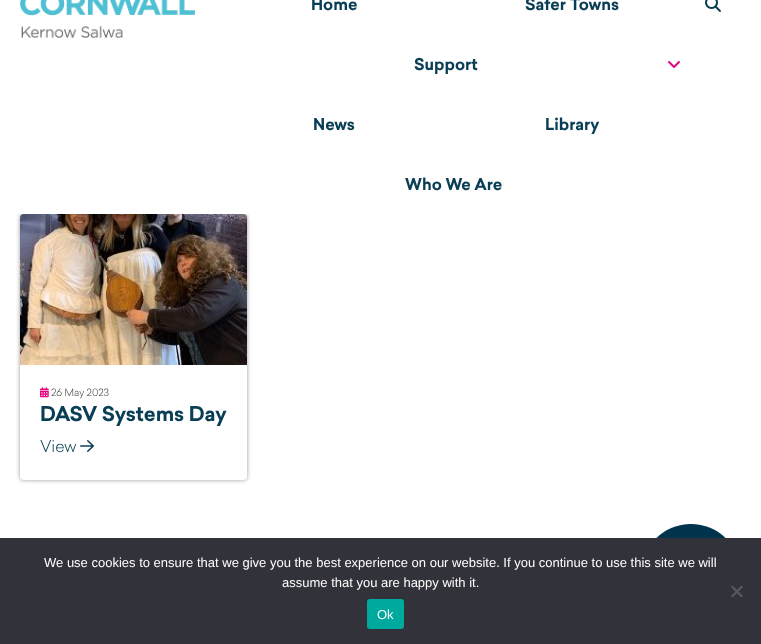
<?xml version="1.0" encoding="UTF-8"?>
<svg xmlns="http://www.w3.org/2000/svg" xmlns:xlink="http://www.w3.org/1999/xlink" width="761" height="644">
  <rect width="100%" height="100%" fill="#ffffff" />
  <rect x="20" y="214" width="227" height="266" rx="4" fill="#999999" filter="blur(2px)" />
  <rect x="18" y="210" width="231" height="4" fill="#ffffff" />
  <image x="20" y="0" width="175" height="38" xlink:href="image1.png" />
  <image x="668" y="61" width="12" height="7" xlink:href="image2.png" />
  <image x="705" y="0" width="16" height="12" xlink:href="image3.png" />
  <rect x="20" y="214" width="227" height="266" rx="4" fill="#ffffff" />
  <image x="20" y="214" width="227" height="151" xlink:href="image4.png" />
  <image x="40" y="387" width="9" height="11" xlink:href="image5.png" />
  <image x="80" y="440" width="14" height="12" xlink:href="image6.png" />
  <circle cx="691" cy="574" r="50" fill="#00344c" />
  <rect y="538" width="761" height="106" fill="#32323a" />
  <path d="M 741.5 585.5 l 1.5 1.5 l -10.5 10.5 l -1.5 -1.5 z" fill="#59595d" />
  <path d="M 731 587 l 1.5 -1.5 l 10.5 10.5 l -1.5 1.5 z" fill="#59595d" />
  <rect x="367" y="599" width="37" height="30" rx="3" fill="#00a99d" />
  <text x="311" y="10" style="font-family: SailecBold; font-size: 16px; font-weight: bold; fill: #093e54">Home</text>
  <text x="525" y="10" style="font-family: SailecBold; font-size: 16px; font-weight: bold; fill: #093e54">Safer Towns</text>
  <text x="414" y="70" style="font-family: SailecBold; font-size: 16px; font-weight: bold; fill: #093e54">Support</text>
  <text x="313" y="130" style="font-family: SailecBold; font-size: 16px; font-weight: bold; fill: #093e54">News</text>
  <text x="545" y="130" style="font-family: SailecBold; font-size: 16px; font-weight: bold; fill: #093e54">Library</text>
  <text x="405" y="190" style="font-family: SailecBold; font-size: 16px; font-weight: bold; fill: #093e54">Who We Are</text>
  <text x="51" y="396" style="font-family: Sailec; font-size: 10px; font-weight: 300; fill: #404041">26 May 2023</text>
  <text x="40" y="421" style="font-family: SailecBold; font-size: 20px; font-weight: bold; fill: #093e54">DASV Systems Day</text>
  <text x="40" y="452" style="font-family: Sailec; font-size: 16px; font-weight: 300; fill: #093e54">View</text>
  <text x="44" y="567" style="font-family: Liberation Sans; font-size: 13px; fill: #ffffff">We use cookies to ensure that we give you the best experience on our website. If you continue to use this site we will</text>
  <text x="282" y="587" style="font-family: Liberation Sans; font-size: 13px; fill: #ffffff">assume that you are happy with it.</text>
  <text x="377" y="619" style="font-family: Liberation Sans; font-size: 13px; fill: #ffffff">Ok</text>
</svg>
